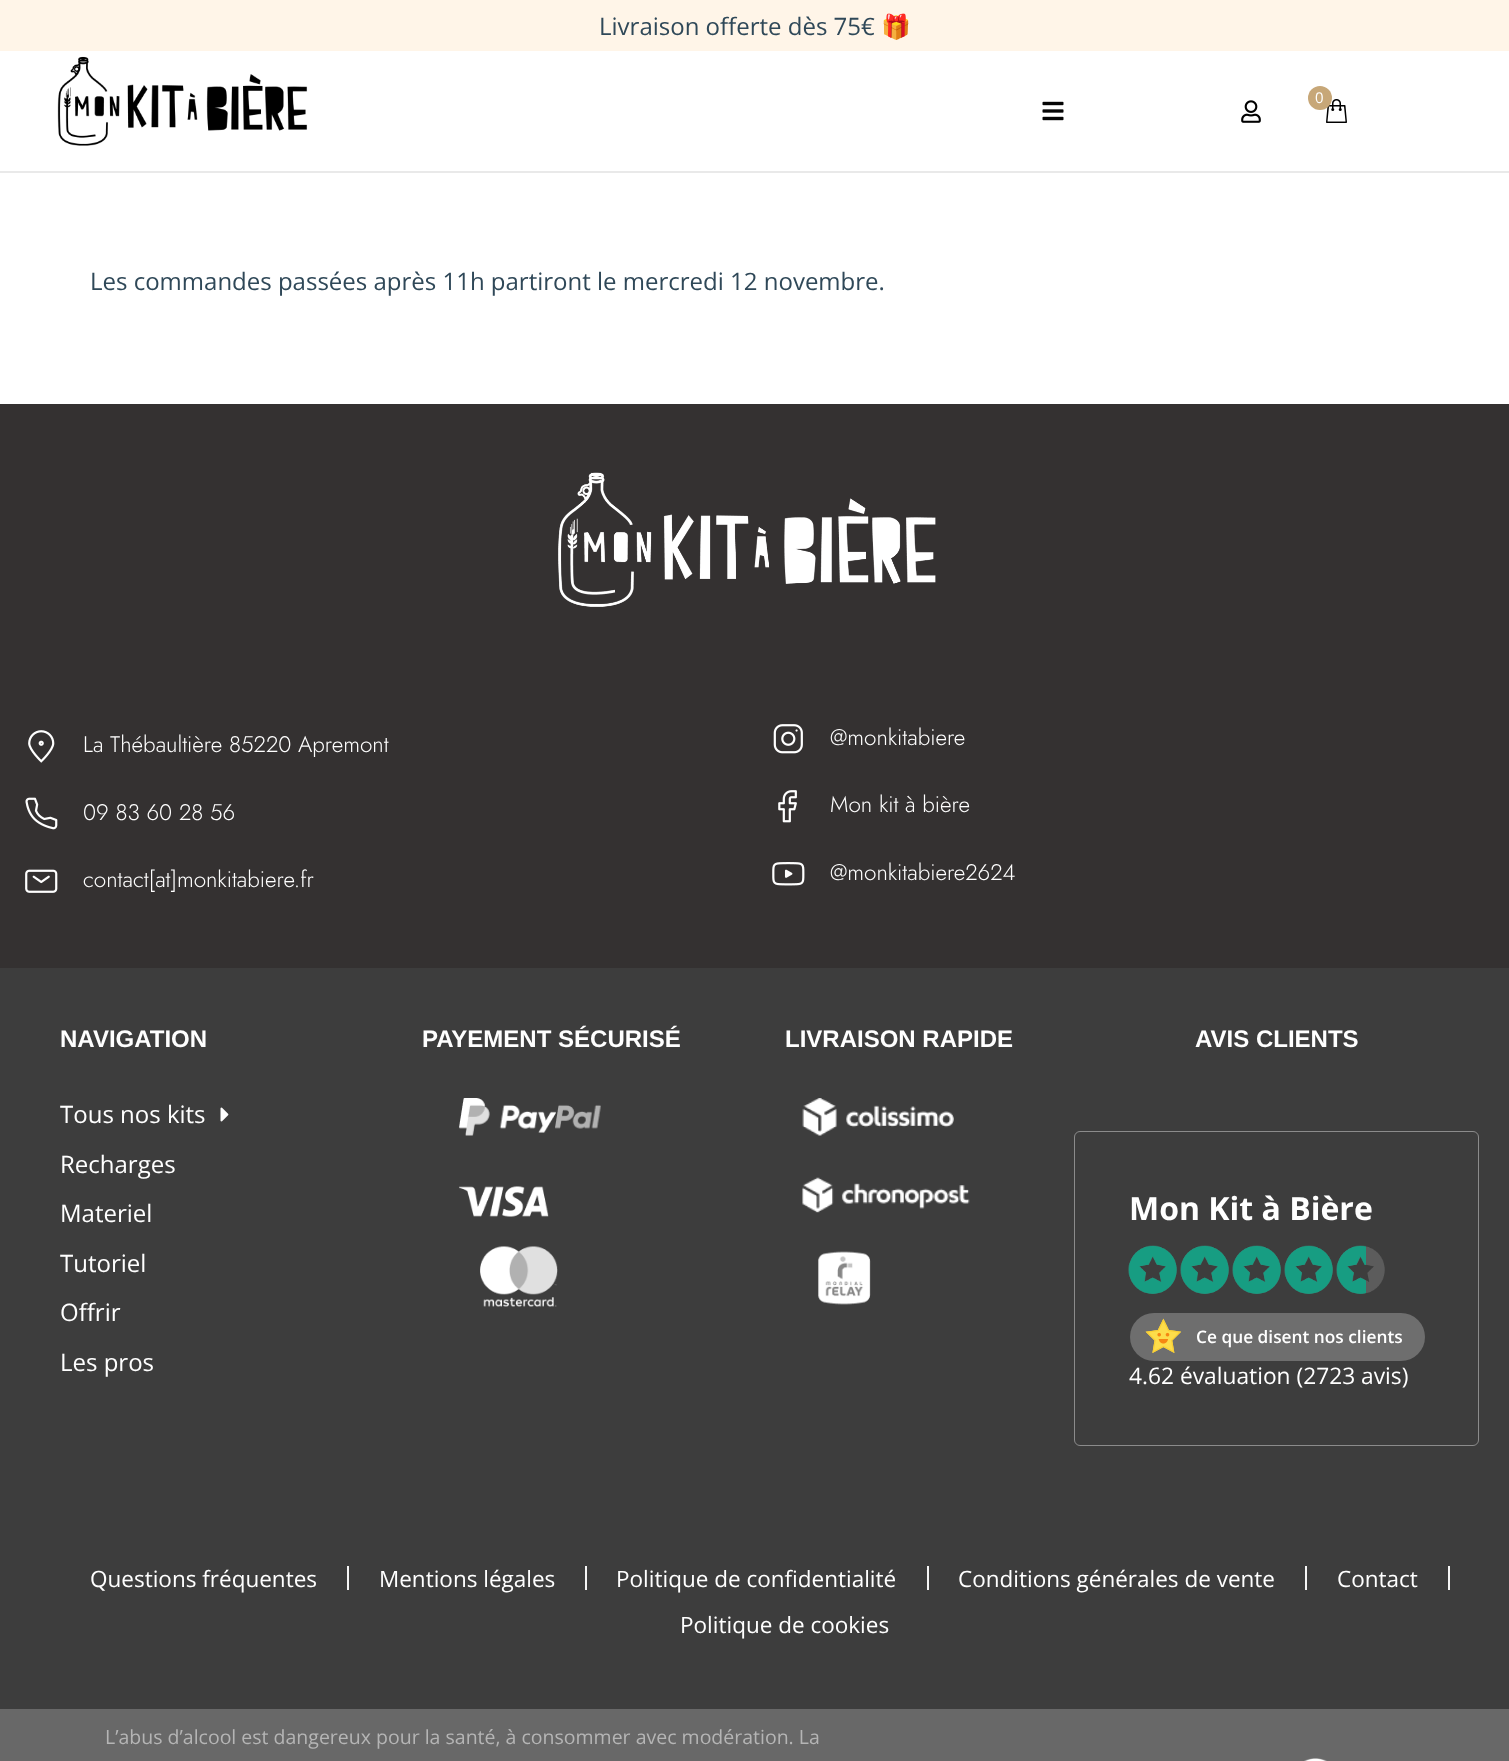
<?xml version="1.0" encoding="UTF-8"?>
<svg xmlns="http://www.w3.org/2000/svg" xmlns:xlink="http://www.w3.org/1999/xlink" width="1509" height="1761">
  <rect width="100%" height="100%" fill="#ffffff" />
  <rect width="1509" height="51" fill="#fff5e8" />
  <rect y="171" width="1509" height="2" fill="#e9e9e9" />
  <image x="57" y="56" width="251" height="90" xlink:href="image1.png" />
  <image x="1326" y="99" width="21" height="24" xlink:href="image2.png" />
  <circle cx="1320" cy="98" r="12" fill="#c7a778" />
  <image x="1241" y="100" width="20" height="23" xlink:href="image3.png" />
  <image x="1042" y="101" width="22" height="20" xlink:href="image4.png" />
  <rect y="968" width="1509" height="741" fill="#3d3d3d" />
  <rect y="404" width="1509" height="564" fill="#343131" />
  <image x="558" y="472" width="378" height="135" xlink:href="image5.png" />
  <image x="28" y="730" width="27" height="33" xlink:href="image6.png" />
  <image x="25" y="797" width="33" height="33" xlink:href="image7.png" />
  <image x="25" y="869" width="33" height="24" xlink:href="image8.png" />
  <image x="773" y="724" width="30" height="30" xlink:href="image9.png" />
  <image x="778" y="790" width="19" height="33" xlink:href="image10.png" />
  <image x="772" y="862" width="33" height="24" xlink:href="image11.png" />
  <image x="220" y="1107" width="9" height="15" xlink:href="image12.png" />
  <image x="459" y="1098" width="142" height="38" xlink:href="image13.png" />
  <image x="459" y="1186" width="90" height="31" xlink:href="image14.png" />
  <image x="480" y="1246" width="78" height="61" xlink:href="image15.png" />
  <image x="802" y="1098" width="152" height="38" xlink:href="image16.png" />
  <image x="802" y="1177" width="168" height="36" xlink:href="image17.png" />
  <image x="818" y="1251" width="53" height="54" xlink:href="image18.png" />
  <rect x="1074.5" y="1131.5" width="404" height="314" rx="5.5" fill="none" stroke="#8b8b8b" />
  <image x="1128" y="1245" width="49" height="49" xlink:href="image19.png" />
  <image x="1128" y="1245" width="49" height="49" xlink:href="image20.png" />
  <image x="1180" y="1245" width="49" height="49" xlink:href="image21.png" />
  <image x="1180" y="1245" width="49" height="49" xlink:href="image22.png" />
  <image x="1232" y="1245" width="49" height="49" xlink:href="image23.png" />
  <image x="1232" y="1245" width="49" height="49" xlink:href="image24.png" />
  <image x="1284" y="1245" width="49" height="49" xlink:href="image25.png" />
  <image x="1284" y="1245" width="49" height="49" xlink:href="image26.png" />
  <image x="1336" y="1245" width="49" height="49" xlink:href="image27.png" />
  <image x="1336" y="1245" width="30" height="49" xlink:href="image28.png" />
  <rect x="1130" y="1313" width="295" height="48" rx="24" fill="#6e6e6e" />
  <image x="1145" y="1318" width="37" height="35" xlink:href="image29.png" />
  <rect x="347" y="1566" width="2" height="24" fill="#f6f6f6" />
  <rect x="585" y="1566" width="2" height="24" fill="#f6f6f6" />
  <rect x="927" y="1566" width="2" height="24" fill="#f6f6f6" />
  <rect x="1305" y="1566" width="2" height="24" fill="#f6f6f6" />
  <rect x="1448" y="1566" width="2" height="24" fill="#f6f6f6" />
  <rect y="1709" width="1509" height="52" fill="#686868" />
  <image x="1304" y="1758" width="23" height="3" xlink:href="image30.png" />
  <text x="599" y="35" style="font-family: Open Sans; font-size: 24px; fill: #2f4858">Livraison offerte dès 75€</text>
  <text x="881" y="35" style="font-family: Noto Color Emoji; font-size: 24px; fill: #2f4858">🎁</text>
  <text x="1315" y="103" style="font-family: Open Sans; font-size: 15px; fill: #ffffff">0</text>
  <text x="90" y="290" style="font-family: Open Sans; font-size: 24px; fill: #2f4858">Les commandes passées après 11h partiront le mercredi 12 novembre.</text>
  <text x="83" y="752" style="font-family: Jost; font-size: 22.5px; font-weight: 300; fill: #ffffff">La Thébaultière 85220 Apremont</text>
  <text x="83" y="820" style="font-family: Jost; font-size: 22.5px; font-weight: 300; fill: #ffffff">09 83 60 28 56</text>
  <text x="83" y="887" style="font-family: Jost; font-size: 22.5px; font-weight: 300; fill: #ffffff">contact[at]monkitabiere.fr</text>
  <text x="830" y="745" style="font-family: Jost; font-size: 22.5px; font-weight: 300; fill: #ffffff">@monkitabiere</text>
  <text x="830" y="812" style="font-family: Jost; font-size: 22.5px; font-weight: 300; fill: #ffffff">Mon kit à bière</text>
  <text x="830" y="880" style="font-family: Jost; font-size: 22.5px; font-weight: 300; fill: #ffffff">@monkitabiere2624</text>
  <text x="60" y="1047" style="font-family: Liberation Sans; font-size: 24px; font-weight: bold; fill: #ffffff">NAVIGATION</text>
  <text x="60" y="1123" style="font-family: Open Sans; font-size: 24px; fill: #ffffff">Tous nos kits</text>
  <text x="60" y="1173" style="font-family: Open Sans; font-size: 24px; fill: #ffffff">Recharges</text>
  <text x="60" y="1222" style="font-family: Open Sans; font-size: 24px; fill: #ffffff">Materiel</text>
  <text x="60" y="1272" style="font-family: Open Sans; font-size: 24px; fill: #ffffff">Tutoriel</text>
  <text x="60" y="1321" style="font-family: Open Sans; font-size: 24px; fill: #ffffff">Offrir</text>
  <text x="60" y="1371" style="font-family: Open Sans; font-size: 24px; fill: #ffffff">Les pros</text>
  <text x="422" y="1047" style="font-family: Liberation Sans; font-size: 24px; font-weight: bold; fill: #ffffff">PAYEMENT SÉCURISÉ</text>
  <text x="785" y="1047" style="font-family: Liberation Sans; font-size: 24px; font-weight: bold; fill: #ffffff">LIVRAISON RAPIDE</text>
  <text x="1195" y="1047" style="font-family: Liberation Sans; font-size: 24px; font-weight: bold; fill: #ffffff">AVIS CLIENTS</text>
  <text x="1129" y="1220" style="font-family: Open Sans; font-size: 32px; font-weight: bold; fill: #ffffff">Mon Kit à Bière</text>
  <text x="1196" y="1343" style="font-family: Open Sans; font-size: 17.3px; font-weight: 600; fill: #ffffff">Ce que disent nos clients</text>
  <text x="1129" y="1384" style="font-family: Open Sans; font-size: 22.75px; fill: #ffffff">4.62 évaluation (2723 avis)</text>
  <text x="90" y="1587" style="font-family: Open Sans; font-size: 22.5px; fill: #ffffff">Questions fréquentes</text>
  <text x="379" y="1587" style="font-family: Open Sans; font-size: 22.5px; fill: #ffffff">Mentions légales</text>
  <text x="616" y="1587" style="font-family: Open Sans; font-size: 22.5px; fill: #ffffff">Politique de confidentialité</text>
  <text x="958" y="1587" style="font-family: Open Sans; font-size: 22.5px; fill: #ffffff">Conditions générales de vente</text>
  <text x="1337" y="1587" style="font-family: Open Sans; font-size: 22.5px; fill: #ffffff">Contact</text>
  <text x="680" y="1633" style="font-family: Open Sans; font-size: 22.5px; fill: #ffffff">Politique de cookies</text>
  <text x="105" y="1744" style="font-family: Open Sans; font-size: 19.5px; fill: #b5b5b5">L’abus d’alcool est dangereux pour la santé, à consommer avec modération. La</text>
</svg>
